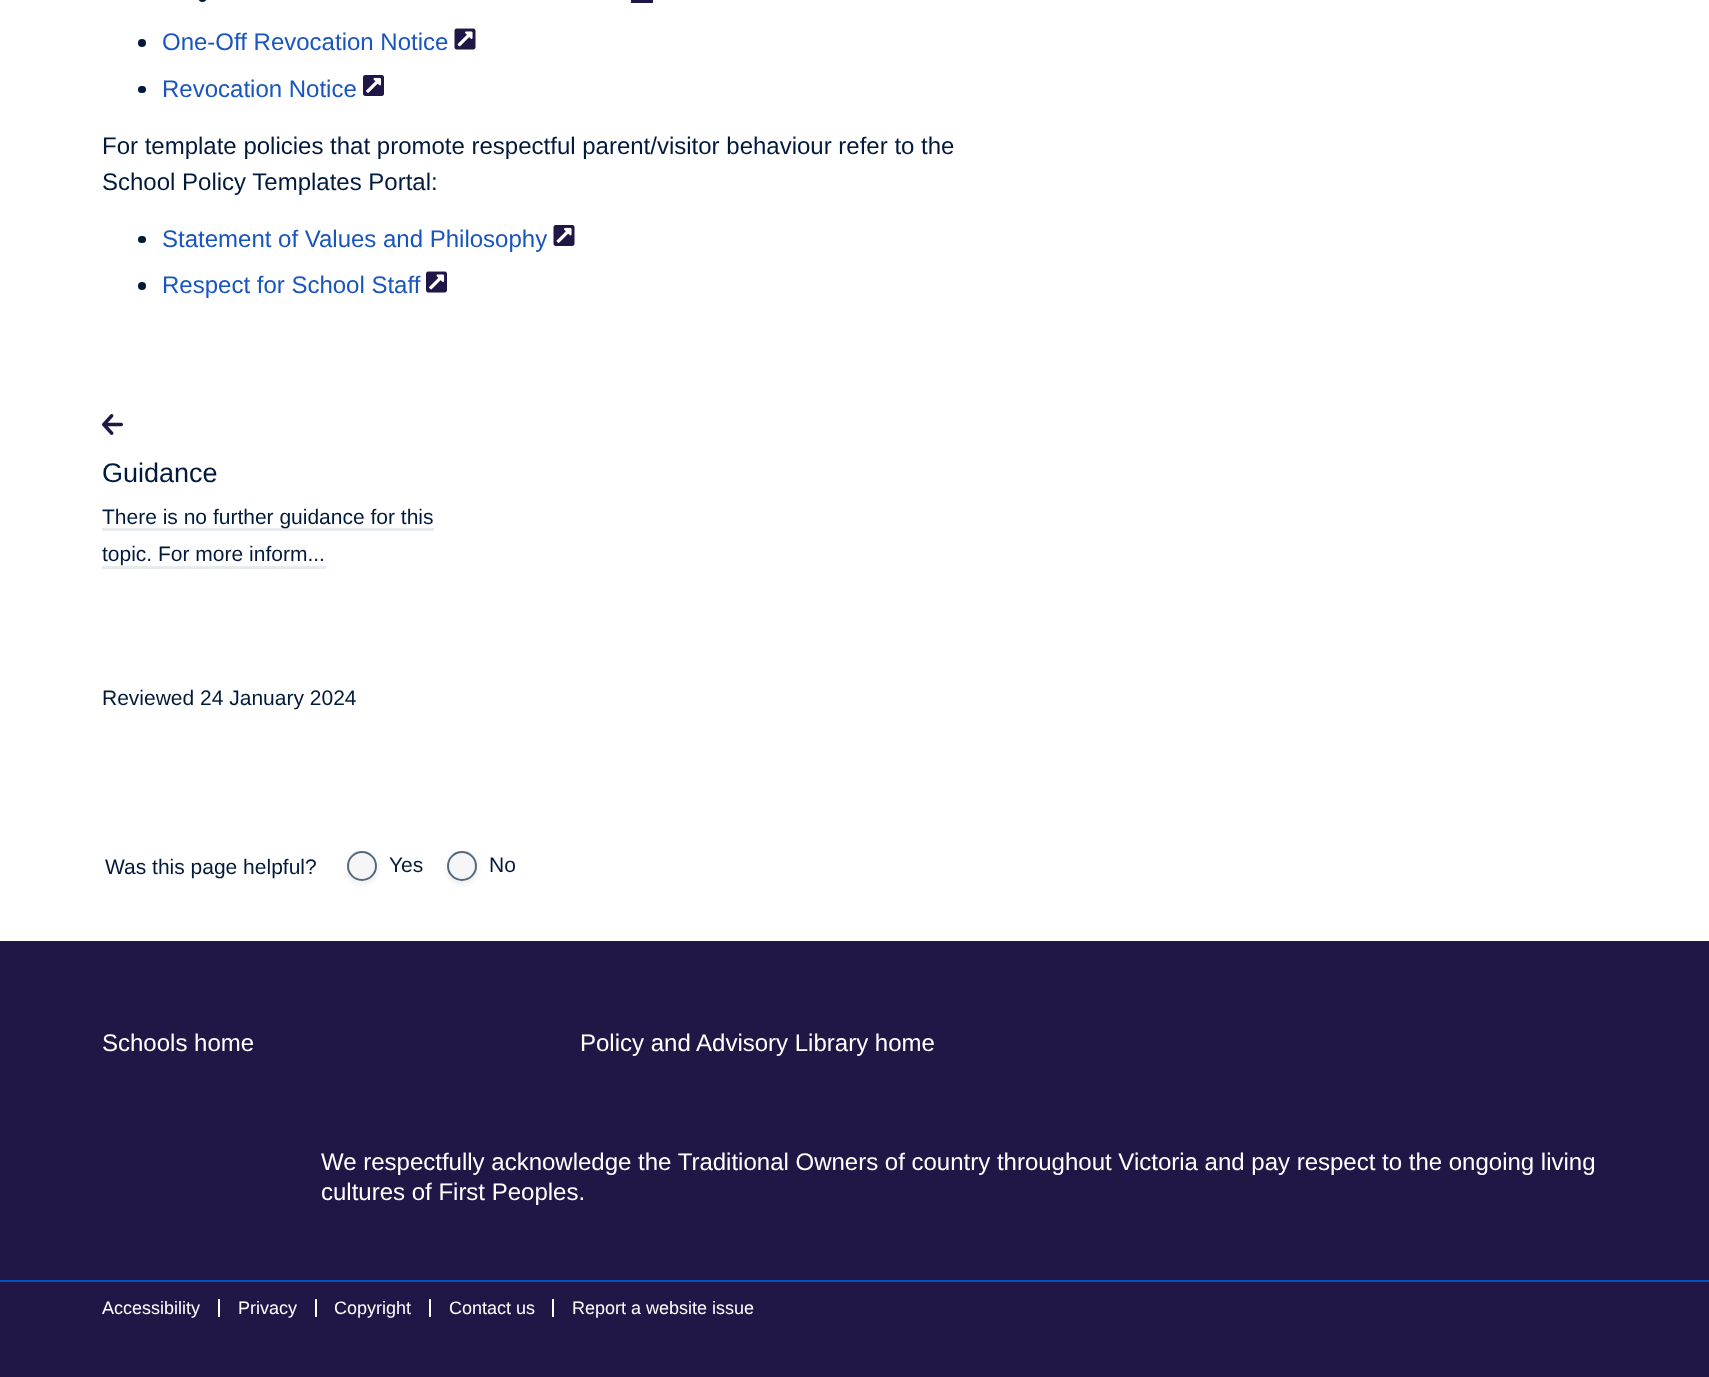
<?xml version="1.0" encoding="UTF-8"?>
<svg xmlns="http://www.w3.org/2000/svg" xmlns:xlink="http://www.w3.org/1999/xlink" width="1709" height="1377">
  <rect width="100%" height="100%" fill="#ffffff" />
  <circle cx="202.5" cy="-2.5" r="3.5" fill="none" stroke="#011a3c" stroke-width="2" />
  <rect x="631" width="22" height="3" fill="#201746" />
  <circle cx="142" cy="43" r="4" fill="#011a3c" />
  <image x="454" y="28" width="22" height="22" xlink:href="image1.png" />
  <rect x="138" y="86" width="8" height="7" rx="3.5" fill="#011a3c" />
  <image x="363" y="75" width="21" height="21" xlink:href="image2.png" />
  <rect x="138" y="236" width="8" height="7" rx="3.5" fill="#011a3c" />
  <image x="553" y="225" width="22" height="21" xlink:href="image3.png" />
  <circle cx="142" cy="286" r="4" fill="#011a3c" />
  <image x="426" y="271" width="21" height="22" xlink:href="image4.png" />
  <image x="102" y="414" width="21" height="21" xlink:href="image5.png" />
  <rect x="102" y="528" width="332" height="3" fill="#e8ebee" />
  <rect x="102" y="566" width="224" height="3" fill="#e8ebee" />
  <rect x="347" y="854" width="30" height="30" rx="15" fill="#000000" fill-opacity="0.08" filter="blur(3px)" />
  <circle cx="362" cy="866" r="14" fill="#f6f6f9" stroke="#546a7c" stroke-width="2" />
  <rect x="447" y="854" width="30" height="30" rx="15" fill="#000000" fill-opacity="0.08" filter="blur(3px)" />
  <circle cx="462" cy="866" r="14" fill="#f6f6f9" stroke="#546a7c" stroke-width="2" />
  <rect y="941" width="1709" height="436" fill="#201746" />
  <rect y="1280" width="1709" height="2" fill="#0052c2" />
  <rect x="218" y="1299" width="2" height="18" fill="#ffffff" />
  <rect x="315" y="1299" width="2" height="18" fill="#ffffff" />
  <rect x="429" y="1299" width="2" height="18" fill="#ffffff" />
  <rect x="552" y="1299" width="2" height="18" fill="#ffffff" />
  <text x="162" y="50" style="font-family: Liberation Sans; font-size: 24px; fill: #1855bf">One-Off Revocation Notice</text>
  <text x="162" y="97" style="font-family: Liberation Sans; font-size: 24px; fill: #1855bf">Revocation Notice</text>
  <text x="102" y="154" style="font-family: Liberation Sans; font-size: 24px; fill: #011a3c">For template policies that promote respectful parent/visitor behaviour refer to the</text>
  <text x="102" y="190" style="font-family: Liberation Sans; font-size: 24px; fill: #011a3c">School Policy Templates Portal:</text>
  <text x="162" y="247" style="font-family: Liberation Sans; font-size: 24px; fill: #1855bf">Statement of Values and Philosophy</text>
  <text x="162" y="293" style="font-family: Liberation Sans; font-size: 24px; fill: #1855bf">Respect for School Staff</text>
  <text x="102" y="482" style="font-family: Liberation Sans; font-size: 27px; fill: #011a3c">Guidance</text>
  <text x="102" y="524" style="font-family: Liberation Sans; font-size: 21px; fill: #011a3c">There is no further guidance for this</text>
  <text x="102" y="561" style="font-family: Liberation Sans; font-size: 21px; fill: #011a3c">topic. For more inform...</text>
  <text x="102" y="705" style="font-family: Liberation Sans; font-size: 21px; fill: #011a3c">Reviewed 24 January 2024</text>
  <text x="105" y="874" style="font-family: Liberation Sans; font-size: 21px; fill: #011a3c">Was this page helpful?</text>
  <text x="389" y="872" style="font-family: Liberation Sans; font-size: 21px; fill: #011a3c">Yes</text>
  <text x="489" y="872" style="font-family: Liberation Sans; font-size: 21px; fill: #011a3c">No</text>
  <text x="102" y="1051" style="font-family: Liberation Sans; font-size: 24px; fill: #ffffff">Schools home</text>
  <text x="580" y="1051" style="font-family: Liberation Sans; font-size: 24px; fill: #ffffff">Policy and Advisory Library home</text>
  <text x="321" y="1170" style="font-family: Liberation Sans; font-size: 24px; fill: #ffffff">We respectfully acknowledge the Traditional Owners of country throughout Victoria and pay respect to the ongoing living</text>
  <text x="321" y="1200" style="font-family: Liberation Sans; font-size: 24px; fill: #ffffff">cultures of First Peoples.</text>
  <text x="102" y="1314" style="font-family: Liberation Sans; font-size: 18px; fill: #ffffff">Accessibility</text>
  <text x="238" y="1314" style="font-family: Liberation Sans; font-size: 18px; fill: #ffffff">Privacy</text>
  <text x="334" y="1314" style="font-family: Liberation Sans; font-size: 18px; fill: #ffffff">Copyright</text>
  <text x="449" y="1314" style="font-family: Liberation Sans; font-size: 18px; fill: #ffffff">Contact us</text>
  <text x="572" y="1314" style="font-family: Liberation Sans; font-size: 18px; fill: #ffffff">Report a website issue</text>
</svg>
